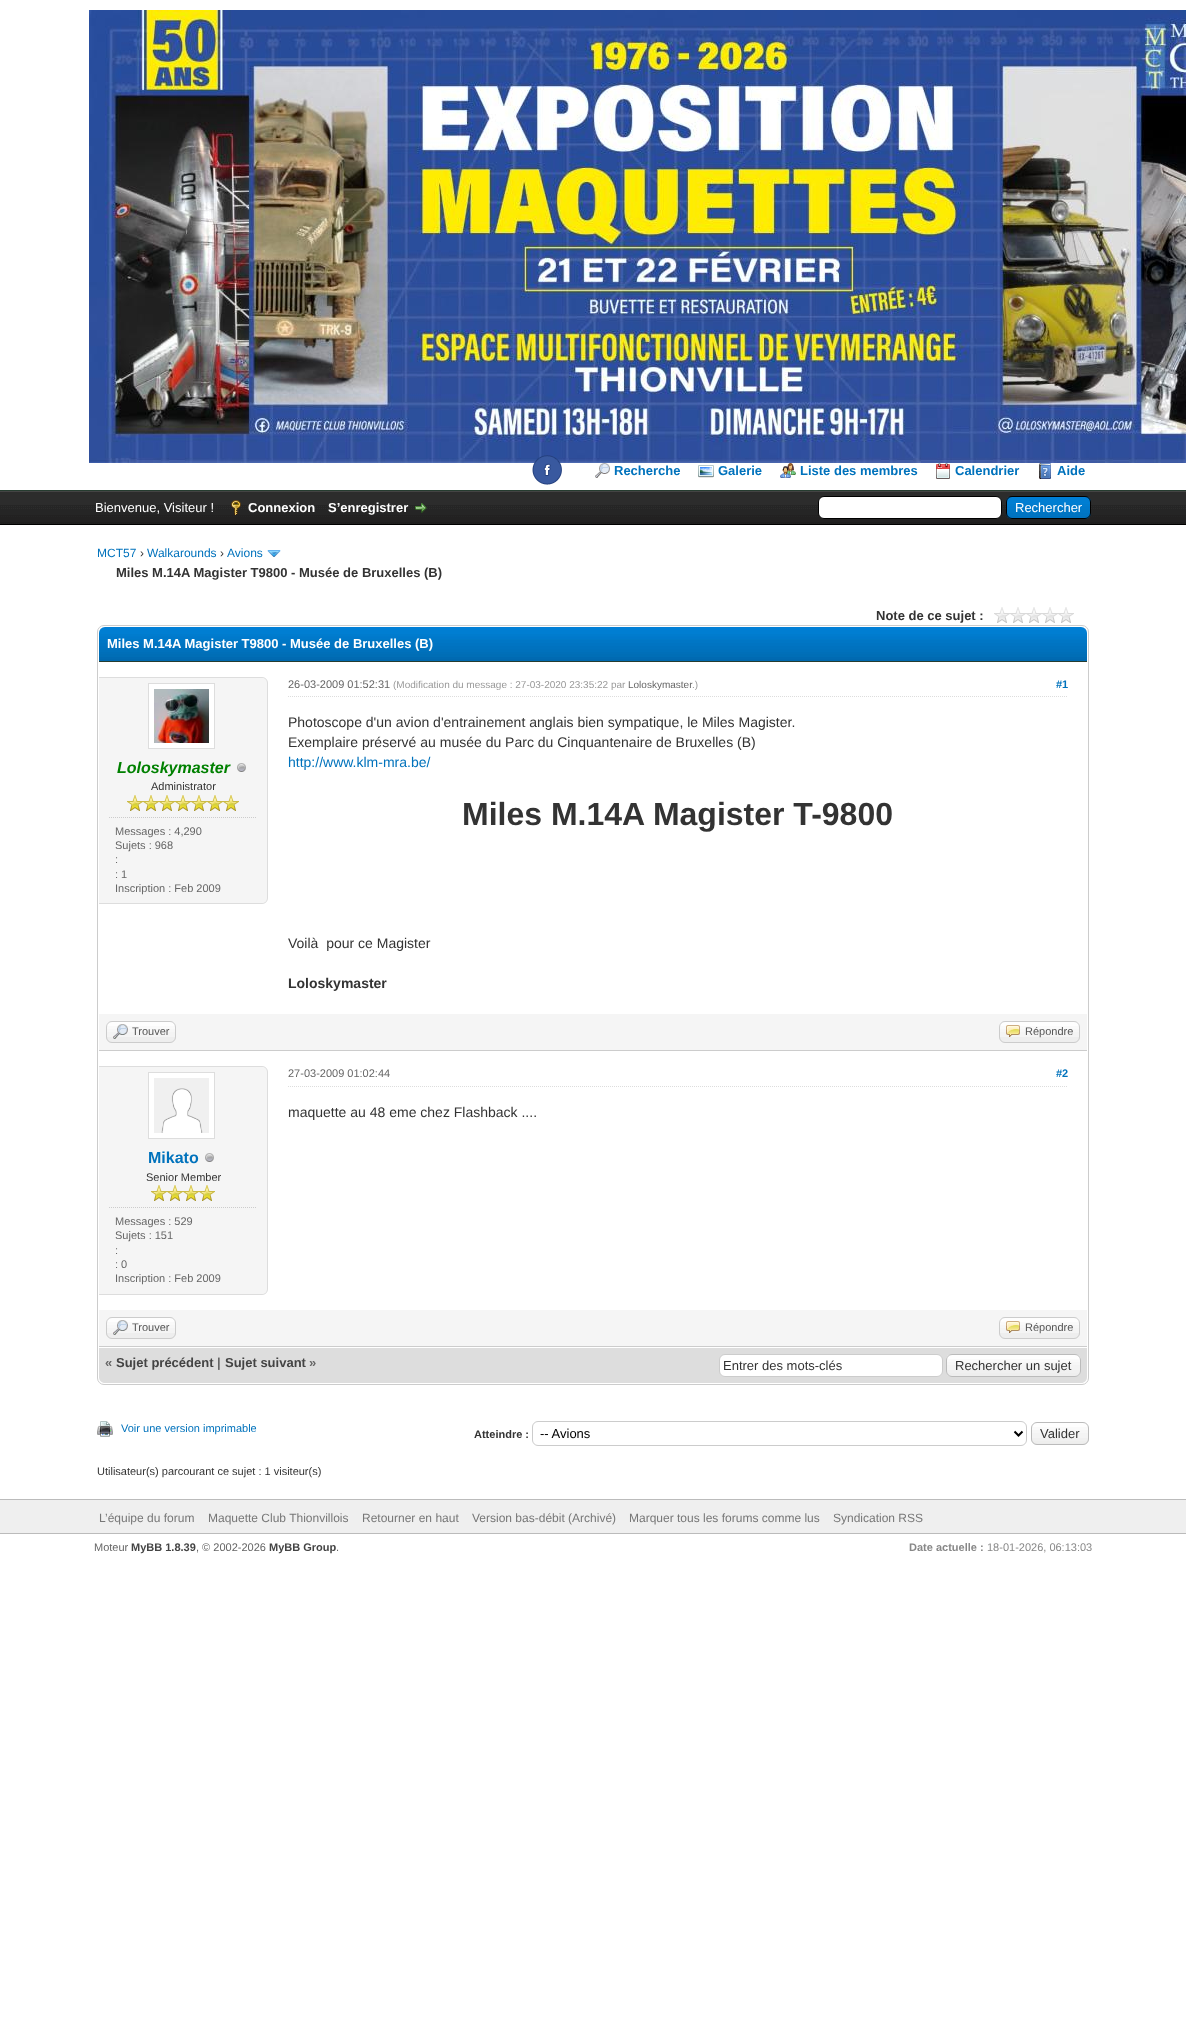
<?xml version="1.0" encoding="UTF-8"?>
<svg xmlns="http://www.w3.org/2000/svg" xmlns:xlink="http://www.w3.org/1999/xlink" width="1186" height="2043">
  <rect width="100%" height="100%" fill="#ffffff" />
  <rect y="490" width="1186" height="1" fill="#263c30" />
  <image x="89" y="10" width="1097" height="453" xlink:href="image1.png" />
  <image x="532" y="455" width="30" height="30" xlink:href="image2.png" />
  <image x="595" y="463" width="15" height="15" xlink:href="image3.png" />
  <image x="698" y="465" width="16" height="13" xlink:href="image4.png" />
  <image x="780" y="463" width="16" height="15" xlink:href="image5.png" />
  <image x="936" y="463" width="14" height="16" xlink:href="image6.png" />
  <image x="1039" y="463" width="12" height="16" xlink:href="image7.png" />
  <image x="0" y="492" width="1186" height="32" xlink:href="image8.png" />
  <rect y="491" width="1186" height="1" fill="#444444" />
  <rect y="524" width="1186" height="1" fill="#000000" />
  <image x="231" y="500" width="10" height="15" xlink:href="image9.png" />
  <image x="415" y="503" width="12" height="10" xlink:href="image10.png" />
  <rect x="818.5" y="496.5" width="183" height="22" rx="5.5" fill="#ffffff" stroke="#000000" />
  <image x="1006" y="497" width="85" height="22" xlink:href="image11.png" />
  <rect x="1006.5" y="496.5" width="84" height="22" rx="5.5" fill="none" stroke="#000000" />
  <image x="267" y="550" width="14" height="7" xlink:href="image12.png" />
  <image x="994" y="607" width="80" height="16" xlink:href="image13.png" />
  <rect x="97.5" y="625.5" width="991" height="759" rx="6.5" fill="none" stroke="#cccccc" />
  <image x="99" y="627" width="988" height="34" xlink:href="image14.png" />
  <rect x="99" y="661" width="988" height="1" fill="#263c30" />
  <path d="M 99 677 h 163 c 3.5 0 6 2.5 6 6 v 215 c 0 3.5 -2.5 6 -6 6 h -163 z" fill="#f5f5f5" />
  <path d="M 99 677 h 163 c 3 0 6 3 6 6 v 215 c 0 3 -3 6 -6 6 h -163 z m 0 1 h 163 c 3 0 5 2 5 5 v 215 c 0 3 -2 5 -5 5 h -163 z" fill="#dddddd" fill-rule="evenodd" />
  <rect x="148.5" y="683.5" width="66" height="65" fill="#ffffff" stroke="#dddddd" />
  <image x="154" y="689" width="55" height="54" xlink:href="image15.png" />
  <image x="237" y="763" width="9" height="9" xlink:href="image16.png" />
  <image x="127" y="795" width="16" height="16" xlink:href="image17.png" />
  <image x="143" y="795" width="16" height="16" xlink:href="image17.png" />
  <image x="159" y="795" width="16" height="16" xlink:href="image17.png" />
  <image x="175" y="795" width="16" height="16" xlink:href="image17.png" />
  <image x="191" y="795" width="16" height="16" xlink:href="image17.png" />
  <image x="207" y="795" width="16" height="16" xlink:href="image17.png" />
  <image x="223" y="795" width="16" height="16" xlink:href="image17.png" />
  <path d="M 109 817.5 h 148" fill="none" stroke="#cccccc" stroke-dasharray="1 1" />
  <path d="M 288 696.5 h 780" fill="none" stroke="#dddddd" stroke-dasharray="1 1" />
  <rect x="99" y="1014" width="988" height="36" fill="#f5f5f5" />
  <rect x="99" y="1050" width="988" height="1" fill="#cccccc" />
  <rect x="106" y="1021" width="70" height="22" rx="6" fill="#eeeeee" />
  <image x="106" y="1022" width="70" height="15" xlink:href="image18.png" />
  <rect x="106.5" y="1021.5" width="69" height="21" rx="5.5" fill="none" stroke="#cccccc" />
  <image x="113" y="1024" width="15" height="15" xlink:href="image19.png" />
  <rect x="999" y="1021" width="81" height="22" rx="6" fill="#eeeeee" />
  <image x="999" y="1022" width="81" height="15" xlink:href="image20.png" />
  <rect x="999.5" y="1021.5" width="80" height="21" rx="5.5" fill="none" stroke="#cccccc" />
  <image x="1006" y="1025" width="14" height="12" xlink:href="image21.png" />
  <path d="M 288 1086.5 h 780" fill="none" stroke="#dddddd" stroke-dasharray="1 1" />
  <path d="M 99 1066 h 163 c 3.5 0 6 2.5 6 6 v 217 c 0 3.5 -2.5 6 -6 6 h -163 z" fill="#f5f5f5" />
  <path d="M 99 1066 h 163 c 3 0 6 3 6 6 v 217 c 0 3 -3 6 -6 6 h -163 z m 0 1 h 163 c 3 0 5 2 5 5 v 217 c 0 3 -2 5 -5 5 h -163 z" fill="#dddddd" fill-rule="evenodd" />
  <rect x="148.5" y="1072.5" width="66" height="66" fill="#ffffff" stroke="#dddddd" />
  <image x="154" y="1078" width="55" height="55" xlink:href="image22.png" />
  <image x="205" y="1153" width="9" height="9" xlink:href="image16.png" />
  <image x="151" y="1185" width="16" height="16" xlink:href="image17.png" />
  <image x="167" y="1185" width="16" height="16" xlink:href="image17.png" />
  <image x="183" y="1185" width="16" height="16" xlink:href="image17.png" />
  <image x="199" y="1185" width="16" height="16" xlink:href="image17.png" />
  <path d="M 109 1207.5 h 148" fill="none" stroke="#cccccc" stroke-dasharray="1 1" />
  <rect x="99" y="1310" width="988" height="36" fill="#f5f5f5" />
  <rect x="99" y="1346" width="988" height="1" fill="#cccccc" />
  <rect x="106" y="1317" width="70" height="22" rx="6" fill="#eeeeee" />
  <image x="106" y="1318" width="70" height="15" xlink:href="image18.png" />
  <rect x="106.5" y="1317.5" width="69" height="21" rx="5.5" fill="none" stroke="#cccccc" />
  <image x="113" y="1320" width="15" height="15" xlink:href="image19.png" />
  <rect x="999" y="1317" width="81" height="22" rx="6" fill="#eeeeee" />
  <image x="999" y="1318" width="81" height="15" xlink:href="image20.png" />
  <rect x="999.5" y="1317.5" width="80" height="21" rx="5.5" fill="none" stroke="#cccccc" />
  <image x="1006" y="1321" width="14" height="12" xlink:href="image21.png" />
  <path d="M 99 1347 h 988 v 30 c 0 3.5 -2.5 6 -6 6 h -976 c -3.5 0 -6 -2.5 -6 -6 z" fill="#dddddd" />
  <rect x="99" y="1347" width="988" height="1" fill="#ffffff" />
  <rect x="719.5" y="1354.5" width="223" height="22" rx="5.5" fill="#ffffff" stroke="#cccccc" />
  <rect x="946" y="1354" width="135" height="23" rx="6" fill="#eeeeee" />
  <image x="946" y="1355" width="135" height="18" xlink:href="image23.png" />
  <rect x="946.5" y="1354.5" width="134" height="22" rx="5.5" fill="none" stroke="#bbbbbb" />
  <image x="97" y="1421" width="16" height="16" xlink:href="image24.png" />
  <rect x="532.5" y="1421.5" width="494" height="24" rx="5.5" fill="none" stroke="#cccccc" />
  <path d="M 1014.5 1431.5 l 4 4 l 4 -4" fill="none" stroke="#000000" stroke-width="2" />
  <image x="1031" y="1423" width="58" height="22" xlink:href="image25.png" />
  <rect x="1031.5" y="1422.5" width="57" height="22" rx="5.5" fill="none" stroke="#bbbbbb" />
  <rect y="1500" width="1186" height="33" fill="#efefef" />
  <rect y="1499" width="1186" height="1" fill="#bbbbbb" />
  <rect y="1533" width="1186" height="1" fill="#bbbbbb" />
  <text x="614" y="475" style="font-family: Liberation Sans; font-size: 13px; font-weight: bold; fill: #0072bc">Recherche</text>
  <text x="718" y="475" style="font-family: Liberation Sans; font-size: 13px; font-weight: bold; fill: #0072bc">Galerie</text>
  <text x="800" y="475" style="font-family: Liberation Sans; font-size: 13px; font-weight: bold; fill: #0072bc">Liste des membres</text>
  <text x="955" y="475" style="font-family: Liberation Sans; font-size: 13px; font-weight: bold; fill: #0072bc">Calendrier</text>
  <text x="1057" y="475" style="font-family: Liberation Sans; font-size: 13px; font-weight: bold; fill: #0072bc">Aide</text>
  <text x="95" y="512" style="font-family: Liberation Sans; font-size: 13px; fill: #ffffff">Bienvenue, Visiteur !</text>
  <text x="248" y="512" style="font-family: Liberation Sans; font-size: 13px; font-weight: bold; fill: #ffffff">Connexion</text>
  <text x="328" y="512" style="font-family: Liberation Sans; font-size: 13px; font-weight: bold; fill: #ffffff">S’enregistrer</text>
  <text x="1015" y="512" style="font-family: Liberation Sans; font-size: 13px; fill: #ffffff">Rechercher</text>
  <text x="97" y="557" style="font-family: Liberation Sans; font-size: 12px; fill: #0072bc">MCT57</text>
  <text x="140" y="557" style="font-family: Liberation Sans; font-size: 12px; fill: #333333">›</text>
  <text x="147" y="557" style="font-family: Liberation Sans; font-size: 12px; fill: #0072bc">Walkarounds</text>
  <text x="220" y="557" style="font-family: Liberation Sans; font-size: 12px; fill: #333333">›</text>
  <text x="227" y="557" style="font-family: Liberation Sans; font-size: 12px; fill: #0072bc">Avions</text>
  <text x="116" y="577" style="font-family: Liberation Sans; font-size: 13px; font-weight: bold; fill: #333333">Miles M.14A Magister T9800 - Musée de Bruxelles (B)</text>
  <text x="876" y="620" style="font-family: Liberation Sans; font-size: 13px; font-weight: bold; fill: #333333">Note de ce sujet :</text>
  <text x="107" y="648" style="font-family: Liberation Sans; font-size: 13px; font-weight: bold; fill: #ffffff">Miles M.14A Magister T9800 - Musée de Bruxelles (B)</text>
  <text x="117" y="773" style="font-family: Liberation Sans; font-size: 16px; font-weight: bold; font-style: italic; fill: #008000">Loloskymaster</text>
  <text x="151" y="790" style="font-family: Liberation Sans; font-size: 11px; fill: #333333">Administrator</text>
  <text x="115" y="835" style="font-family: Liberation Sans; font-size: 11px; fill: #666666">Messages : 4,290</text>
  <text x="115" y="849" style="font-family: Liberation Sans; font-size: 11px; fill: #666666">Sujets : 968</text>
  <text x="115" y="863" style="font-family: Liberation Sans; font-size: 11px; fill: #666666">:</text>
  <text x="115" y="878" style="font-family: Liberation Sans; font-size: 11px; fill: #666666">: 1</text>
  <text x="115" y="892" style="font-family: Liberation Sans; font-size: 11px; fill: #666666">Inscription : Feb 2009</text>
  <text x="288" y="688" style="font-family: Liberation Sans; font-size: 11px; fill: #666666">26-03-2009 01:52:31</text>
  <text x="393" y="688" style="font-family: Liberation Sans; font-size: 10px; fill: #999999">(Modification du message : 27-03-2020 23:35:22 par</text>
  <text x="628" y="688" style="font-family: Liberation Sans; font-size: 10px; fill: #666666">Loloskymaster</text>
  <text x="692" y="688" style="font-family: Liberation Sans; font-size: 10px; fill: #999999">.)</text>
  <text x="1056" y="688" style="font-family: Liberation Sans; font-size: 11px; font-weight: bold; fill: #0072bc">#1</text>
  <text x="288" y="727" style="font-family: Liberation Sans; font-size: 14px; fill: #333333">Photoscope d'un avion d'entrainement anglais bien sympatique, le Miles Magister.</text>
  <text x="288" y="747" style="font-family: Liberation Sans; font-size: 14px; fill: #333333">Exemplaire préservé au musée du Parc du Cinquantenaire de Bruxelles (B)</text>
  <text x="288" y="767" style="font-family: Liberation Sans; font-size: 14px; fill: #0072bc">http://www.klm-mra.be/</text>
  <text x="462" y="825" style="font-family: Liberation Sans; font-size: 32px; font-weight: bold; fill: #333333">Miles M.14A Magister T-9800</text>
  <text x="288" y="948" style="font-family: Liberation Sans; font-size: 14px; fill: #333333" xml:space="preserve">Voilà  pour ce Magister</text>
  <text x="288" y="988" style="font-family: Liberation Sans; font-size: 14px; font-weight: bold; fill: #333333">Loloskymaster</text>
  <text x="132" y="1035" style="font-family: Liberation Sans; font-size: 11px; fill: #555555">Trouver</text>
  <text x="1025" y="1035" style="font-family: Liberation Sans; font-size: 11px; fill: #555555">Répondre</text>
  <text x="288" y="1077" style="font-family: Liberation Sans; font-size: 11px; fill: #666666">27-03-2009 01:02:44</text>
  <text x="1056" y="1077" style="font-family: Liberation Sans; font-size: 11px; font-weight: bold; fill: #0072bc">#2</text>
  <text x="288" y="1117" style="font-family: Liberation Sans; font-size: 14px; fill: #333333">maquette au 48 eme chez Flashback ....</text>
  <text x="148" y="1163" style="font-family: Liberation Sans; font-size: 16px; font-weight: bold; fill: #0072bc">Mikato</text>
  <text x="146" y="1181" style="font-family: Liberation Sans; font-size: 11px; fill: #333333">Senior Member</text>
  <text x="115" y="1225" style="font-family: Liberation Sans; font-size: 11px; fill: #666666">Messages : 529</text>
  <text x="115" y="1239" style="font-family: Liberation Sans; font-size: 11px; fill: #666666">Sujets : 151</text>
  <text x="115" y="1254" style="font-family: Liberation Sans; font-size: 11px; fill: #666666">:</text>
  <text x="115" y="1268" style="font-family: Liberation Sans; font-size: 11px; fill: #666666">: 0</text>
  <text x="115" y="1282" style="font-family: Liberation Sans; font-size: 11px; fill: #666666">Inscription : Feb 2009</text>
  <text x="132" y="1331" style="font-family: Liberation Sans; font-size: 11px; fill: #555555">Trouver</text>
  <text x="1025" y="1331" style="font-family: Liberation Sans; font-size: 11px; fill: #555555">Répondre</text>
  <text x="105" y="1367" style="font-family: Liberation Sans; font-size: 13px; font-weight: bold; fill: #666666">«</text>
  <text x="116" y="1367" style="font-family: Liberation Sans; font-size: 13px; font-weight: bold; fill: #444444">Sujet précédent</text>
  <text x="217" y="1367" style="font-family: Liberation Sans; font-size: 13px; font-weight: bold; fill: #666666">|</text>
  <text x="225" y="1367" style="font-family: Liberation Sans; font-size: 13px; font-weight: bold; fill: #444444">Sujet suivant</text>
  <text x="309" y="1367" style="font-family: Liberation Sans; font-size: 13px; font-weight: bold; fill: #666666">»</text>
  <text x="723" y="1370" style="font-family: Liberation Sans; font-size: 13px; fill: #333333">Entrer des mots-clés</text>
  <text x="955" y="1370" style="font-family: Liberation Sans; font-size: 13px; fill: #333333">Rechercher un sujet</text>
  <text x="121" y="1432" style="font-family: Liberation Sans; font-size: 11px; fill: #0072bc">Voir une version imprimable</text>
  <text x="474" y="1438" style="font-family: Liberation Sans; font-size: 11px; font-weight: bold; fill: #333333">Atteindre :</text>
  <text x="540" y="1438" style="font-family: Liberation Sans; font-size: 13px; fill: #000000">-- Avions</text>
  <text x="1040" y="1438" style="font-family: Liberation Sans; font-size: 13px; fill: #333333">Valider</text>
  <text x="97" y="1475" style="font-family: Liberation Sans; font-size: 11px; fill: #333333">Utilisateur(s) parcourant ce sujet : 1 visiteur(s)</text>
  <text x="99" y="1522" style="font-family: Liberation Sans; font-size: 12px; fill: #777777">L’équipe du forum</text>
  <text x="208" y="1522" style="font-family: Liberation Sans; font-size: 12px; fill: #777777">Maquette Club Thionvillois</text>
  <text x="362" y="1522" style="font-family: Liberation Sans; font-size: 12px; fill: #777777">Retourner en haut</text>
  <text x="472" y="1522" style="font-family: Liberation Sans; font-size: 12px; fill: #777777">Version bas-débit (Archivé)</text>
  <text x="629" y="1522" style="font-family: Liberation Sans; font-size: 12px; fill: #777777">Marquer tous les forums comme lus</text>
  <text x="833" y="1522" style="font-family: Liberation Sans; font-size: 12px; fill: #777777">Syndication RSS</text>
  <text x="94" y="1551" style="font-family: Liberation Sans; font-size: 11px; fill: #666666">Moteur</text>
  <text x="131" y="1551" style="font-family: Liberation Sans; font-size: 11px; font-weight: bold; fill: #444444">MyBB 1.8.39</text>
  <text x="196" y="1551" style="font-family: Liberation Sans; font-size: 11px; fill: #666666">, © 2002-2026</text>
  <text x="269" y="1551" style="font-family: Liberation Sans; font-size: 11px; font-weight: bold; fill: #444444">MyBB Group</text>
  <text x="336" y="1551" style="font-family: Liberation Sans; font-size: 11px; fill: #666666">.</text>
  <text x="909" y="1551" style="font-family: Liberation Sans; font-size: 11px; font-weight: bold; fill: #888888">Date actuelle :</text>
  <text x="987" y="1551" style="font-family: Liberation Sans; font-size: 11px; fill: #888888">18-01-2026, 06:13:03</text>
</svg>
